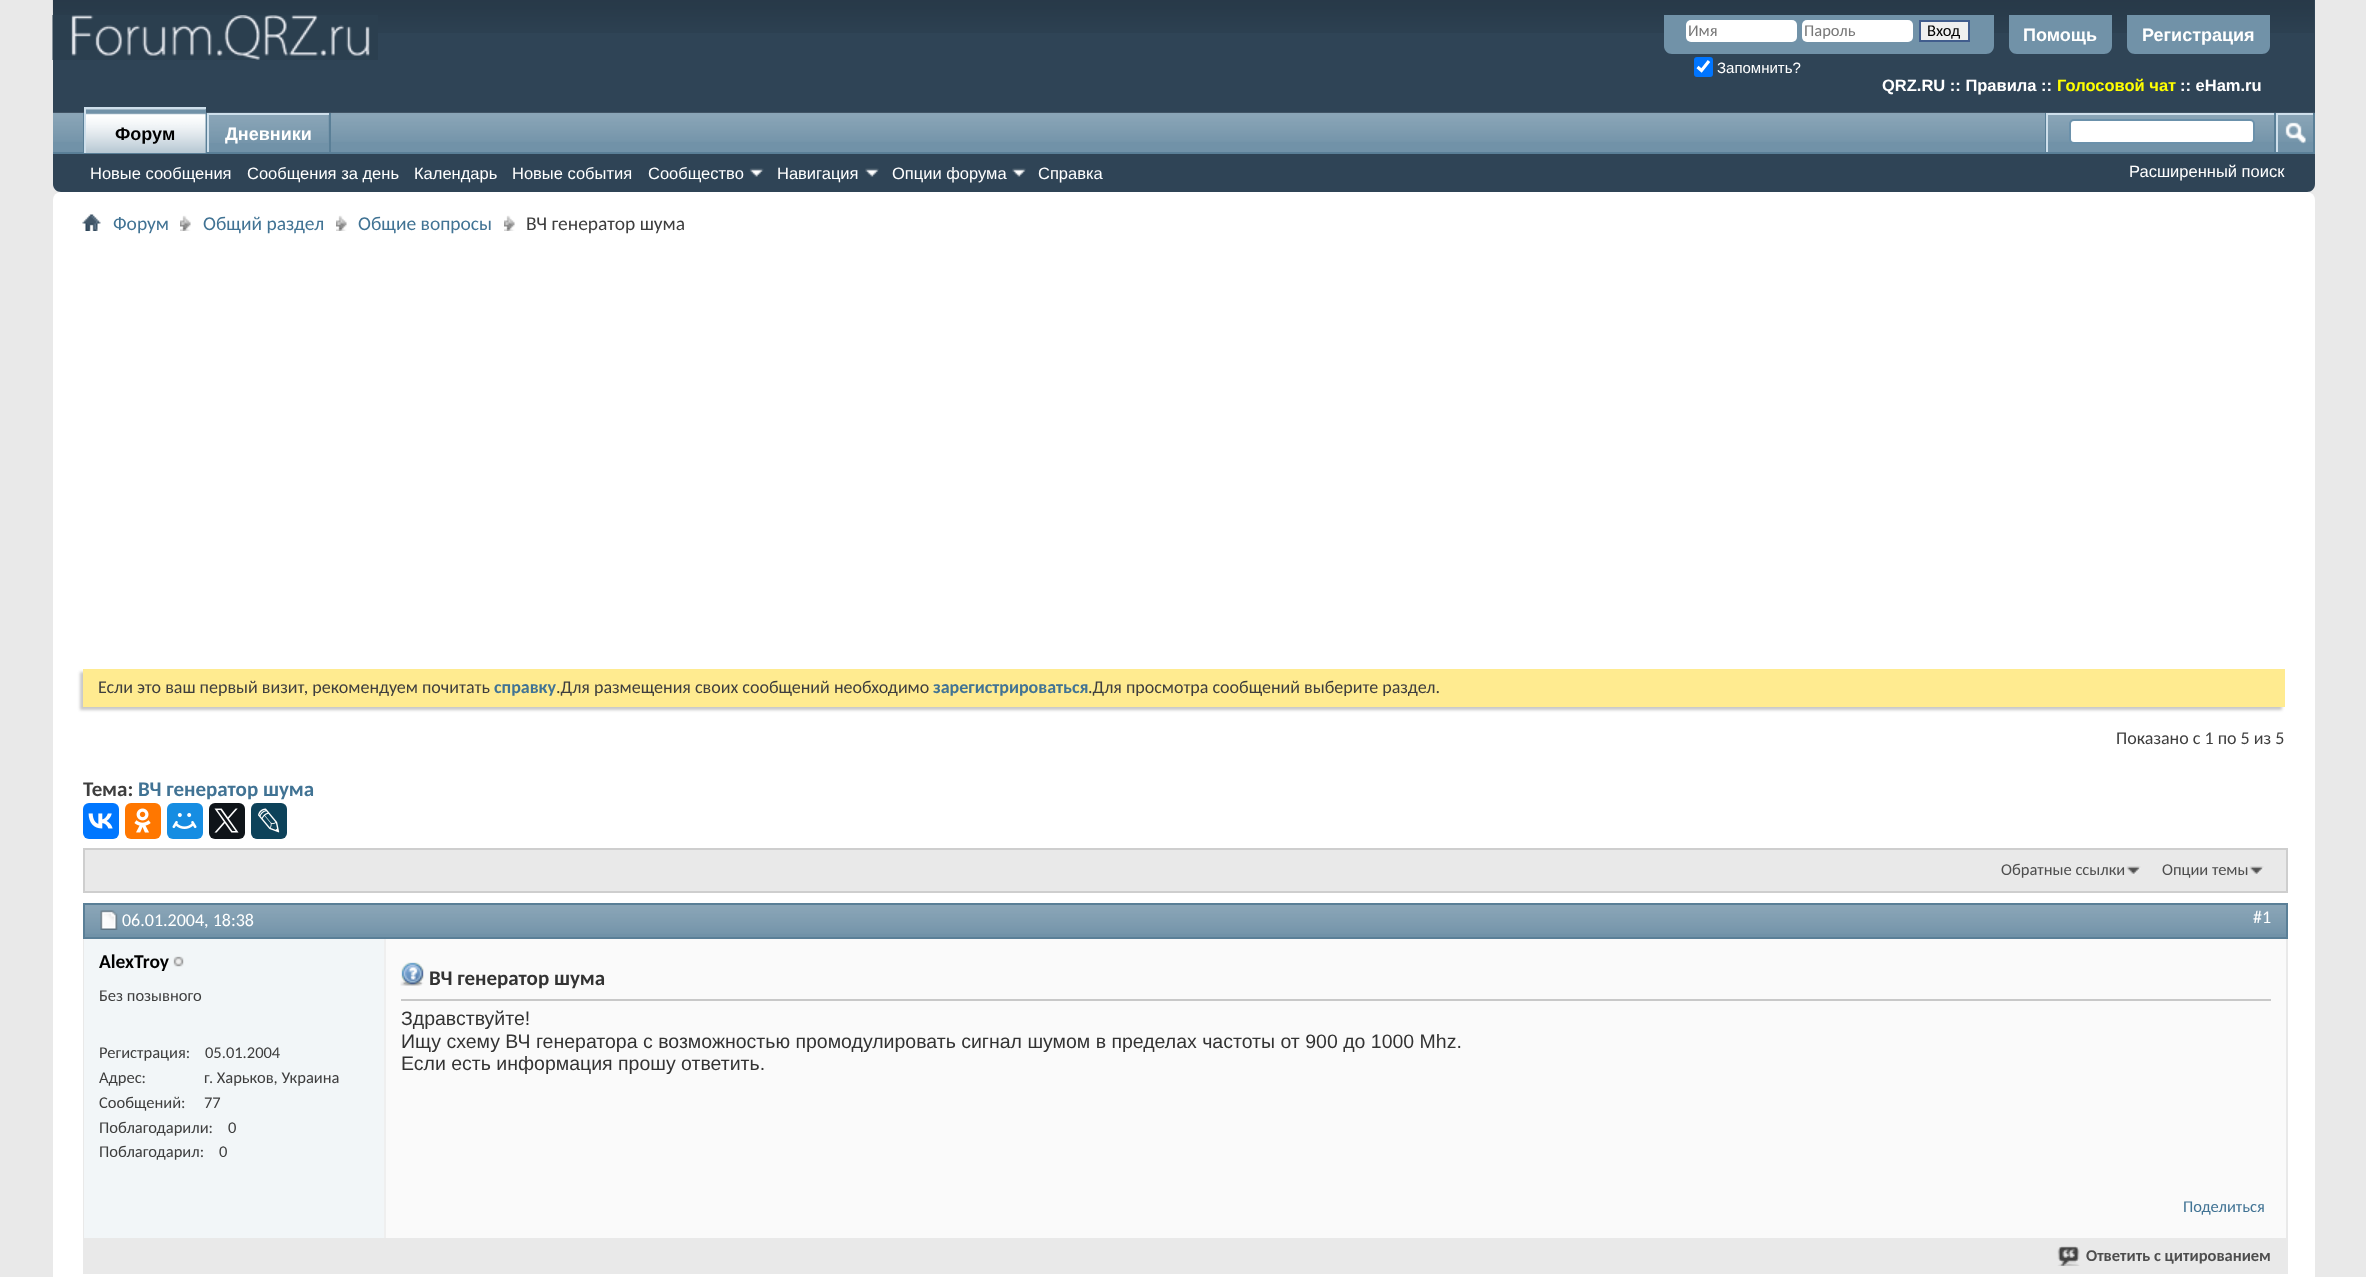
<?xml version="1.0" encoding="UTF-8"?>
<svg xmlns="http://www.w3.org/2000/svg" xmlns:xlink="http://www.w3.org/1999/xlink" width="2366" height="1277">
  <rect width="100%" height="100%" fill="#e9e9e9" />
  <path d="M 53 0 h 2262 v 184 c 0 4.5 -3.5 8 -8 8 h -2246 c -4.5 0 -8 -3.5 -8 -8 z" fill="#2f4456" />
  <image x="52" y="0" width="2262" height="33" xlink:href="image1.png" />
  <image x="52" y="15" width="326" height="45" xlink:href="image2.png" />
  <path d="M 1664 15 h 330 v 31 c 0 4.5 -3.5 8 -8 8 h -314 c -4.5 0 -8 -3.5 -8 -8 z" fill="#7192a8" />
  <rect x="1686" y="20" width="111" height="22" rx="5" fill="#ffffff" />
  <rect x="1802" y="20" width="111" height="22" rx="5" fill="#ffffff" />
  <rect x="1920" y="21" width="49" height="20" fill="#efefef" stroke="#415d8d" stroke-width="2" />
  <rect x="1694" y="57" width="19" height="20" rx="3" fill="#0075ff" />
  <path d="M 1697.5 67 l 4 3.5 l 7.5 -9.5" fill="none" stroke="#ffffff" stroke-width="3.1" />
  <path d="M 2009 15 h 103 v 31 c 0 4.5 -3.5 8 -8 8 h -87 c -4.5 0 -8 -3.5 -8 -8 z" fill="#7192a8" />
  <path d="M 2127 15 h 143 v 31 c 0 4.5 -3.5 8 -8 8 h -127 c -4.5 0 -8 -3.5 -8 -8 z" fill="#7192a8" />
  <rect x="53" y="113" width="2260" height="39" fill="#7192a8" />
  <image x="53" y="112" width="2262" height="30" xlink:href="image3.png" />
  <rect x="206" y="113" width="1" height="39" fill="#5a7f97" />
  <rect x="83" y="113" width="1" height="39" fill="#5a7f97" />
  <rect x="329" y="113" width="2" height="40" fill="#5a7f97" />
  <rect x="207" y="113" width="122" height="2" fill="#cedfeb" />
  <rect x="207" y="113" width="2" height="40" fill="#cedfeb" />
  <rect x="53" y="152" width="2262" height="2" fill="#5a7f97" />
  <rect x="86" y="109" width="120" height="44" fill="#7192a8" />
  <image x="86" y="109" width="120" height="44" xlink:href="image4.png" />
  <rect x="84" y="107" width="122" height="2" fill="#cedfeb" />
  <rect x="84" y="107" width="2" height="46" fill="#cedfeb" />
  <rect x="209" y="115" width="120" height="27" fill="#7192a8" />
  <image x="209" y="115" width="120" height="28" xlink:href="image5.png" />
  <image x="749" y="168" width="15" height="9" xlink:href="image6.png" />
  <image x="865" y="168" width="14" height="9" xlink:href="image7.png" />
  <image x="1012" y="168" width="14" height="9" xlink:href="image7.png" />
  <rect x="2045" y="113" width="1" height="39" fill="#5a7f97" />
  <rect x="2046" y="113" width="228" height="2" fill="#cedfeb" />
  <rect x="2046" y="113" width="2" height="39" fill="#cedfeb" />
  <rect x="2070" y="120" width="184" height="23" rx="4" fill="#ffffff" stroke="#6b91ab" stroke-width="2" />
  <rect x="2313" y="113" width="2" height="39" fill="#5a7f97" />
  <rect x="2274" y="113" width="2" height="39" fill="#5a7f97" />
  <rect x="2276" y="113" width="37" height="2" fill="#cedfeb" />
  <rect x="2276" y="113" width="2" height="39" fill="#cedfeb" />
  <image x="2285" y="122" width="21" height="22" xlink:href="image8.png" />
  <rect x="53" y="192" width="2262" height="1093" rx="8" fill="#ffffff" />
  <image x="82" y="214" width="19" height="17" xlink:href="image9.png" />
  <image x="180" y="215" width="11" height="16" xlink:href="image10.png" />
  <image x="336" y="215" width="11" height="16" xlink:href="image11.png" />
  <image x="504" y="215" width="11" height="16" xlink:href="image12.png" />
  <rect x="80" y="672" width="2202" height="38" fill="#c8c8c8" filter="blur(1.5px)" />
  <rect x="83" y="669" width="2202" height="38" fill="#ffeb90" />
  <rect x="83" y="803" width="36" height="36" rx="6" fill="#0077ff" />
  <image x="88" y="813" width="25" height="16" xlink:href="image13.png" />
  <rect x="125" y="803" width="36" height="36" rx="6" fill="#ff7700" />
  <image x="134" y="808" width="17" height="25" xlink:href="image14.png" />
  <rect x="167" y="803" width="36" height="36" rx="6" fill="#168de2" />
  <image x="172" y="813" width="25" height="16" xlink:href="image15.png" />
  <rect x="209" y="803" width="36" height="36" rx="6" fill="#0f1419" />
  <image x="214" y="808" width="25" height="25" xlink:href="image16.png" />
  <rect x="251" y="803" width="36" height="36" rx="6" fill="#0d425a" />
  <image x="258" y="808" width="22" height="25" xlink:href="image17.png" />
  <rect x="84" y="849" width="2203" height="43" fill="#e9e9e9" stroke="#cecece" stroke-width="2" />
  <image x="2126" y="866" width="15" height="8" xlink:href="image18.png" />
  <image x="2249" y="866" width="15" height="8" xlink:href="image18.png" />
  <rect x="84" y="904" width="2203" height="369" fill="none" stroke="#e9e9e9" stroke-width="2" />
  <rect x="85" y="905" width="2201" height="32" fill="#7192a8" />
  <image x="85" y="905" width="2201" height="29" xlink:href="image19.png" />
  <rect x="84" y="904" width="2203" height="34" fill="none" stroke="#5a7f97" stroke-width="2" />
  <image x="100" y="910" width="18" height="20" xlink:href="image20.png" />
  <rect x="84" y="939" width="300" height="299" fill="#f2f6f8" />
  <image x="173" y="956" width="11" height="11" xlink:href="image21.png" />
  <rect x="386" y="939" width="1900" height="299" fill="#fafafa" />
  <rect x="384" y="939" width="2" height="299" fill="#efefef" />
  <rect x="401" y="999" width="1870" height="2" fill="#c8c8c8" />
  <image x="400" y="962" width="24" height="24" xlink:href="image22.png" />
  <rect x="85" y="1238" width="2201" height="34" fill="#e9e9e9" />
  <image x="2057" y="1246" width="23" height="20" xlink:href="image23.png" />
  <text x="1688" y="36" style="font-family: Carlito; font-size: 16.5px; fill: #777777">Имя</text>
  <text x="1804" y="36" style="font-family: Carlito; font-size: 16.5px; fill: #777777">Пароль</text>
  <text x="1927" y="36" style="font-family: Carlito; font-size: 16.5px; fill: #000000">Вход</text>
  <text x="1717" y="73" style="font-family: Liberation Sans; font-size: 15px; fill: #ffffff">Запомнить?</text>
  <text x="2023" y="41" style="font-family: Liberation Sans; font-size: 18px; font-weight: bold; fill: #ffffff">Помощь</text>
  <text x="2142" y="41" style="font-family: Liberation Sans; font-size: 18px; font-weight: bold; fill: #ffffff">Регистрация</text>
  <text x="1882" y="91" style="font-family: Liberation Sans; font-size: 16.5px; font-weight: bold; fill: #ffffff">QRZ.RU :: Правила ::</text>
  <text x="2057" y="91" style="font-family: Liberation Sans; font-size: 16.5px; font-weight: bold; fill: #ffff00">Голосовой чат</text>
  <text x="2180" y="91" style="font-family: Liberation Sans; font-size: 16.5px; font-weight: bold; fill: #ffffff">:: eHam.ru</text>
  <text x="115" y="140" style="font-family: Liberation Sans; font-size: 18px; font-weight: bold; fill: #000000">Форум</text>
  <text x="225" y="140" style="font-family: Liberation Sans; font-size: 18px; font-weight: bold; fill: #ffffff">Дневники</text>
  <text x="90" y="179" style="font-family: Liberation Sans; font-size: 16.5px; fill: #ffffff">Новые сообщения</text>
  <text x="247" y="179" style="font-family: Liberation Sans; font-size: 16.5px; fill: #ffffff">Сообщения за день</text>
  <text x="414" y="179" style="font-family: Liberation Sans; font-size: 16.5px; fill: #ffffff">Календарь</text>
  <text x="512" y="179" style="font-family: Liberation Sans; font-size: 16.5px; fill: #ffffff">Новые события</text>
  <text x="648" y="179" style="font-family: Liberation Sans; font-size: 16.5px; fill: #ffffff">Сообщество</text>
  <text x="777" y="179" style="font-family: Liberation Sans; font-size: 16.5px; fill: #ffffff">Навигация</text>
  <text x="892" y="179" style="font-family: Liberation Sans; font-size: 16.5px; fill: #ffffff">Опции форума</text>
  <text x="1038" y="179" style="font-family: Liberation Sans; font-size: 16.5px; fill: #ffffff">Справка</text>
  <text x="2129" y="177" style="font-family: Liberation Sans; font-size: 16.5px; fill: #ffffff">Расширенный поиск</text>
  <text x="113" y="230" style="font-family: Carlito; font-size: 19.5px; fill: #417394">Форум</text>
  <text x="203" y="230" style="font-family: Carlito; font-size: 19.5px; fill: #417394">Общий раздел</text>
  <text x="358" y="230" style="font-family: Carlito; font-size: 19.5px; fill: #417394">Общие вопросы</text>
  <text x="526" y="230" style="font-family: Carlito; font-size: 19.5px; fill: #3e3e3e">ВЧ генератор шума</text>
  <text x="98" y="693" style="font-family: Carlito; font-size: 18px; fill: #3e3e3e">Если это ваш первый визит, рекомендуем почитать</text>
  <text x="494" y="693" style="font-family: Carlito; font-size: 18px; font-weight: bold; fill: #417394">справку</text>
  <text x="556" y="693" style="font-family: Carlito; font-size: 18px; fill: #3e3e3e">.Для размещения своих сообщений необходимо</text>
  <text x="933" y="693" style="font-family: Carlito; font-size: 18px; font-weight: bold; fill: #417394">зарегистрироваться</text>
  <text x="1088" y="693" style="font-family: Carlito; font-size: 18px; fill: #3e3e3e">.Для просмотра сообщений выберите раздел.</text>
  <text x="2116" y="744" style="font-family: Carlito; font-size: 18px; fill: #3e3e3e">Показано с 1 по 5 из 5</text>
  <text x="83" y="796" style="font-family: Carlito; font-size: 21px; font-weight: bold; fill: #3e3e3e">Тема:</text>
  <text x="138" y="796" style="font-family: Carlito; font-size: 21px; font-weight: bold; fill: #417394">ВЧ генератор шума</text>
  <text x="2001" y="875" style="font-family: Carlito; font-size: 16.5px; fill: #4e4e4e">Обратные ссылки</text>
  <text x="2162" y="875" style="font-family: Carlito; font-size: 16.5px; fill: #4e4e4e">Опции темы</text>
  <text x="122" y="926" style="font-family: Carlito; font-size: 18px; fill: #ffffff">06.01.2004, 18:38</text>
  <text x="2253" y="923" style="font-family: Carlito; font-size: 18px; fill: #ffffff">#1</text>
  <text x="99" y="968" style="font-family: Carlito; font-size: 19.5px; font-weight: bold; fill: #000000">AlexTroy</text>
  <text x="99" y="1001" style="font-family: Carlito; font-size: 16.5px; fill: #3e3e3e">Без позывного</text>
  <text x="99" y="1058" style="font-family: Carlito; font-size: 16.5px; fill: #3e3e3e">Регистрация:</text>
  <text x="205" y="1058" style="font-family: Carlito; font-size: 16.5px; fill: #3e3e3e">05.01.2004</text>
  <text x="99" y="1083" style="font-family: Carlito; font-size: 16.5px; fill: #3e3e3e">Адрес:</text>
  <text x="204" y="1083" style="font-family: Carlito; font-size: 16.5px; fill: #3e3e3e">г. Харьков, Украина</text>
  <text x="99" y="1108" style="font-family: Carlito; font-size: 16.5px; fill: #3e3e3e">Сообщений:</text>
  <text x="204" y="1108" style="font-family: Carlito; font-size: 16.5px; fill: #3e3e3e">77</text>
  <text x="99" y="1133" style="font-family: Carlito; font-size: 16.5px; fill: #3e3e3e">Поблагодарили:</text>
  <text x="228" y="1133" style="font-family: Carlito; font-size: 16.5px; fill: #3e3e3e">0</text>
  <text x="99" y="1157" style="font-family: Carlito; font-size: 16.5px; fill: #3e3e3e">Поблагодарил:</text>
  <text x="219" y="1157" style="font-family: Carlito; font-size: 16.5px; fill: #3e3e3e">0</text>
  <text x="429" y="985" style="font-family: Carlito; font-size: 21px; font-weight: bold; fill: #333333">ВЧ генератор шума</text>
  <text x="401" y="1025" style="font-family: Liberation Sans; font-size: 19.5px; fill: #333333">Здравствуйте!</text>
  <text x="401" y="1048" style="font-family: Liberation Sans; font-size: 19.5px; fill: #333333">Ищу схему ВЧ генератора с возможностью промодулировать сигнал шумом в пределах частоты от 900 до 1000 Mhz.</text>
  <text x="401" y="1070" style="font-family: Liberation Sans; font-size: 19.5px; fill: #333333">Если есть информация прошу ответить.</text>
  <text x="2183" y="1212" style="font-family: Carlito; font-size: 16.5px; fill: #417394">Поделиться</text>
  <text x="2086" y="1261" style="font-family: Carlito; font-size: 16.5px; font-weight: bold; fill: #4e4e4e">Ответить с цитированием</text>
</svg>
